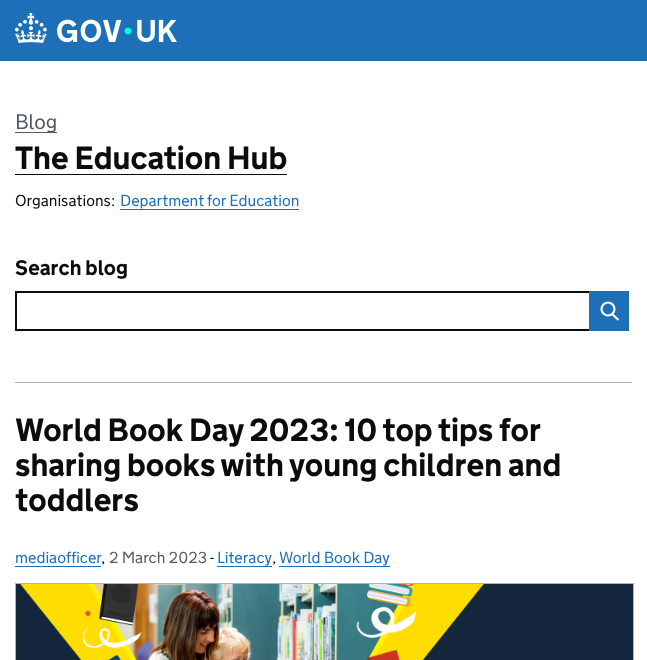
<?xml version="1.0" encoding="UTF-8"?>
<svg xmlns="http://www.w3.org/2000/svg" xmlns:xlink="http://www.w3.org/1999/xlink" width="647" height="660">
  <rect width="100%" height="100%" fill="#ffffff" />
  <rect width="647" height="61" fill="#1d70b8" />
  <image x="15" y="13" width="162" height="30" xlink:href="image1.png" />
  <rect x="15" y="132" width="42" height="1" fill="#505a5f" />
  <rect x="15" y="174" width="272" height="1" fill="#0b0c0c" />
  <rect x="120" y="209" width="179" height="1" fill="#1d70b8" />
  <rect x="15" y="291" width="574" height="2" fill="#0b0c0c" />
  <rect x="15" y="329" width="574" height="2" fill="#0b0c0c" />
  <rect x="15" y="291" width="2" height="40" fill="#0b0c0c" />
  <rect x="589" y="291" width="40" height="40" fill="#1d70b8" />
  <circle cx="608" cy="309" r="6.5" fill="none" stroke="#ffffff" stroke-width="2.2" />
  <path d="M 612 314 l 6.5 6" fill="none" stroke="#ffffff" stroke-width="2.2" />
  <rect x="15" y="382" width="617" height="1" fill="#b1b4b6" />
  <rect x="15" y="566" width="86" height="1" fill="#1d70b8" />
  <rect x="217" y="566" width="55" height="1" fill="#1d70b8" />
  <rect x="279" y="566" width="111" height="1" fill="#1d70b8" />
  <rect x="15.5" y="583.5" width="618" height="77" fill="none" stroke="#b1b4b6" />
  <image x="16" y="584" width="617" height="76" xlink:href="image2.png" />
  <text x="15" y="129" style="font-family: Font; font-size: 21px; font-weight: 300; fill: #505a5f">Blog</text>
  <text x="15" y="169" style="font-family: Font; font-size: 32px; font-weight: bold; fill: #0b0c0c">The Education Hub</text>
  <text x="15" y="206" style="font-family: Font; font-size: 16px; font-weight: 300; fill: #0b0c0c">Organisations:</text>
  <text x="120" y="206" style="font-family: Font; font-size: 16px; font-weight: 300; fill: #1d70b8">Department for Education</text>
  <text x="15" y="275" style="font-family: Font; font-size: 21px; font-weight: bold; fill: #0b0c0c">Search blog</text>
  <text x="15" y="441" style="font-family: Font; font-size: 32px; font-weight: bold; fill: #0b0c0c">World Book Day 2023: 10 top tips for</text>
  <text x="15" y="476" style="font-family: Font; font-size: 32px; font-weight: bold; fill: #0b0c0c">sharing books with young children and</text>
  <text x="15" y="511" style="font-family: Font; font-size: 32px; font-weight: bold; fill: #0b0c0c">toddlers</text>
  <text x="15" y="563" style="font-family: Font; font-size: 16px; font-weight: 300; fill: #1d70b8">mediaofficer</text>
  <text x="109" y="563" style="font-family: Font; font-size: 16px; font-weight: 300; fill: #505a5f">2 March 2023</text>
  <text x="210" y="563" style="font-family: Font; font-size: 16px; font-weight: 300; fill: #0b0c0c">-</text>
  <text x="217" y="563" style="font-family: Font; font-size: 16px; font-weight: 300; fill: #1d70b8">Literacy</text>
  <text x="279" y="563" style="font-family: Font; font-size: 16px; font-weight: 300; fill: #1d70b8">World Book Day</text>
  <text x="101" y="563" style="font-family: Font; font-size: 16px; font-weight: 300; fill: #0b0c0c">,</text>
  <text x="272" y="563" style="font-family: Font; font-size: 16px; font-weight: 300; fill: #0b0c0c">,</text>
</svg>
